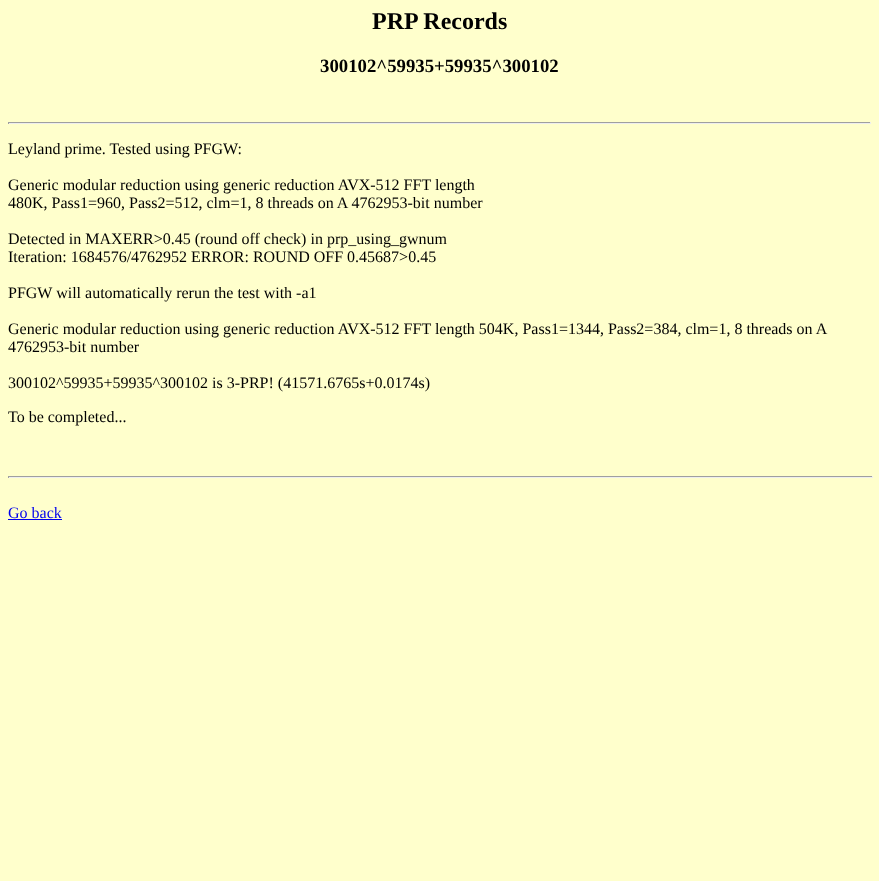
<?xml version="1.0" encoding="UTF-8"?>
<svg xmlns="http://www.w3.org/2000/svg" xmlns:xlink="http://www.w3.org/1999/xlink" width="879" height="881">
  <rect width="100%" height="100%" fill="#ffffcc" />
  <rect x="8" y="122" width="863" height="1" fill="#9f9f9f" />
  <rect x="870" y="122" width="1" height="2" fill="#eeeeee" />
  <rect x="8" y="123" width="863" height="1" fill="#eeeeee" />
  <rect x="8" y="122" width="1" height="2" fill="#9f9f9f" />
  <rect x="8" y="476" width="865" height="1" fill="#9f9f9f" />
  <rect x="872" y="476" width="1" height="2" fill="#eeeeee" />
  <rect x="8" y="477" width="865" height="1" fill="#eeeeee" />
  <rect x="8" y="476" width="1" height="2" fill="#9f9f9f" />
  <rect x="8" y="519" width="54" height="1" fill="#0000ee" />
  <text x="372" y="29" style="font-family: Liberation Serif; font-size: 24px; font-weight: bold; fill: #000000">PRP Records</text>
  <text x="320" y="72" style="font-family: Liberation Serif; font-size: 18.75px; font-weight: bold; fill: #000000">300102^59935+59935^300102</text>
  <text x="8" y="154" style="font-family: Liberation Serif; font-size: 16px; fill: #000000">Leyland prime. Tested using PFGW:</text>
  <text x="8" y="190" style="font-family: Liberation Serif; font-size: 16px; fill: #000000">Generic modular reduction using generic reduction AVX-512 FFT length</text>
  <text x="8" y="208" style="font-family: Liberation Serif; font-size: 16px; fill: #000000">480K, Pass1=960, Pass2=512, clm=1, 8 threads on A 4762953-bit number</text>
  <text x="8" y="244" style="font-family: Liberation Serif; font-size: 16px; fill: #000000">Detected in MAXERR&gt;0.45 (round off check) in prp_using_gwnum</text>
  <text x="8" y="262" style="font-family: Liberation Serif; font-size: 16px; fill: #000000">Iteration: 1684576/4762952 ERROR: ROUND OFF 0.45687&gt;0.45</text>
  <text x="8" y="298" style="font-family: Liberation Serif; font-size: 16px; fill: #000000">PFGW will automatically rerun the test with -a1</text>
  <text x="8" y="334" style="font-family: Liberation Serif; font-size: 16px; fill: #000000">Generic modular reduction using generic reduction AVX-512 FFT length 504K, Pass1=1344, Pass2=384, clm=1, 8 threads on A</text>
  <text x="8" y="352" style="font-family: Liberation Serif; font-size: 16px; fill: #000000">4762953-bit number</text>
  <text x="8" y="388" style="font-family: Liberation Serif; font-size: 16px; fill: #000000">300102^59935+59935^300102 is 3-PRP! (41571.6765s+0.0174s)</text>
  <text x="8" y="422" style="font-family: Liberation Serif; font-size: 16px; fill: #000000">To be completed...</text>
  <text x="8" y="518" style="font-family: Liberation Serif; font-size: 16px; fill: #0000ee">Go back</text>
</svg>
